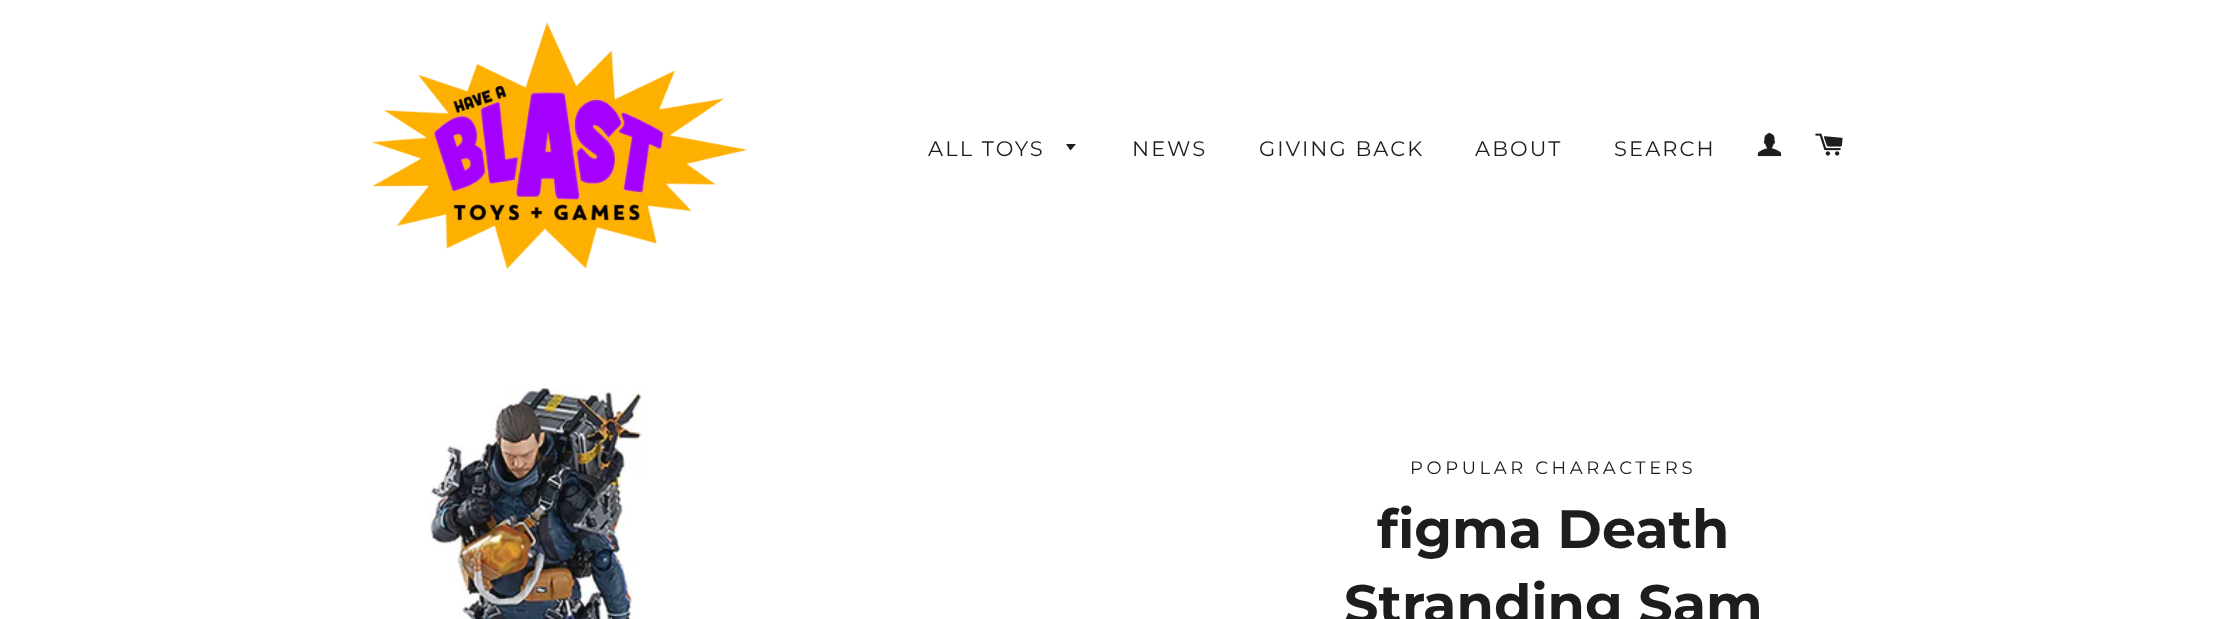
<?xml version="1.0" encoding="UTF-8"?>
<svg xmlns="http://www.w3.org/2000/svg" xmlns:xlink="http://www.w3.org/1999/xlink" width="2229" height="619">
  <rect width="100%" height="100%" fill="#ffffff" />
  <image x="372" y="22" width="375" height="247" xlink:href="image1.png" />
  <path d="M 1066 144 l 4.5 6.5 l 5.5 -6.5 z" fill="#1c1d1d" />
  <image x="1757" y="132" width="25" height="25" xlink:href="image2.png" />
  <image x="1815" y="133" width="28" height="23" xlink:href="image3.png" />
  <image x="429" y="388" width="214" height="231" xlink:href="image4.png" />
  <text x="928" y="156" style="font-family: Montserrat; font-size: 21px; font-weight: 100; letter-spacing: 2.1px; fill: #1c1d1d">ALL TOYS</text>
  <text x="1132" y="156" style="font-family: Montserrat; font-size: 21px; font-weight: 100; letter-spacing: 2.1px; fill: #1c1d1d">NEWS</text>
  <text x="1259" y="156" style="font-family: Montserrat; font-size: 21px; font-weight: 100; letter-spacing: 2.1px; fill: #1c1d1d">GIVING BACK</text>
  <text x="1475" y="156" style="font-family: Montserrat; font-size: 21px; font-weight: 100; letter-spacing: 2.1px; fill: #1c1d1d">ABOUT</text>
  <text x="1614" y="156" style="font-family: Montserrat; font-size: 21px; font-weight: 100; letter-spacing: 2.1px; fill: #1c1d1d">SEARCH</text>
  <text x="1410" y="474" style="font-family: Montserrat; font-size: 18px; font-weight: 100; letter-spacing: 3.6px; fill: #1c1d1d">POPULAR CHARACTERS</text>
  <text x="1377" y="548" style="font-family: 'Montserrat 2'; font-size: 54px; font-weight: 100; fill: #1c1d1d">figma Death</text>
  <text x="1344" y="623" style="font-family: 'Montserrat 2'; font-size: 54px; font-weight: 100; fill: #1c1d1d">Stranding Sam</text>
</svg>
